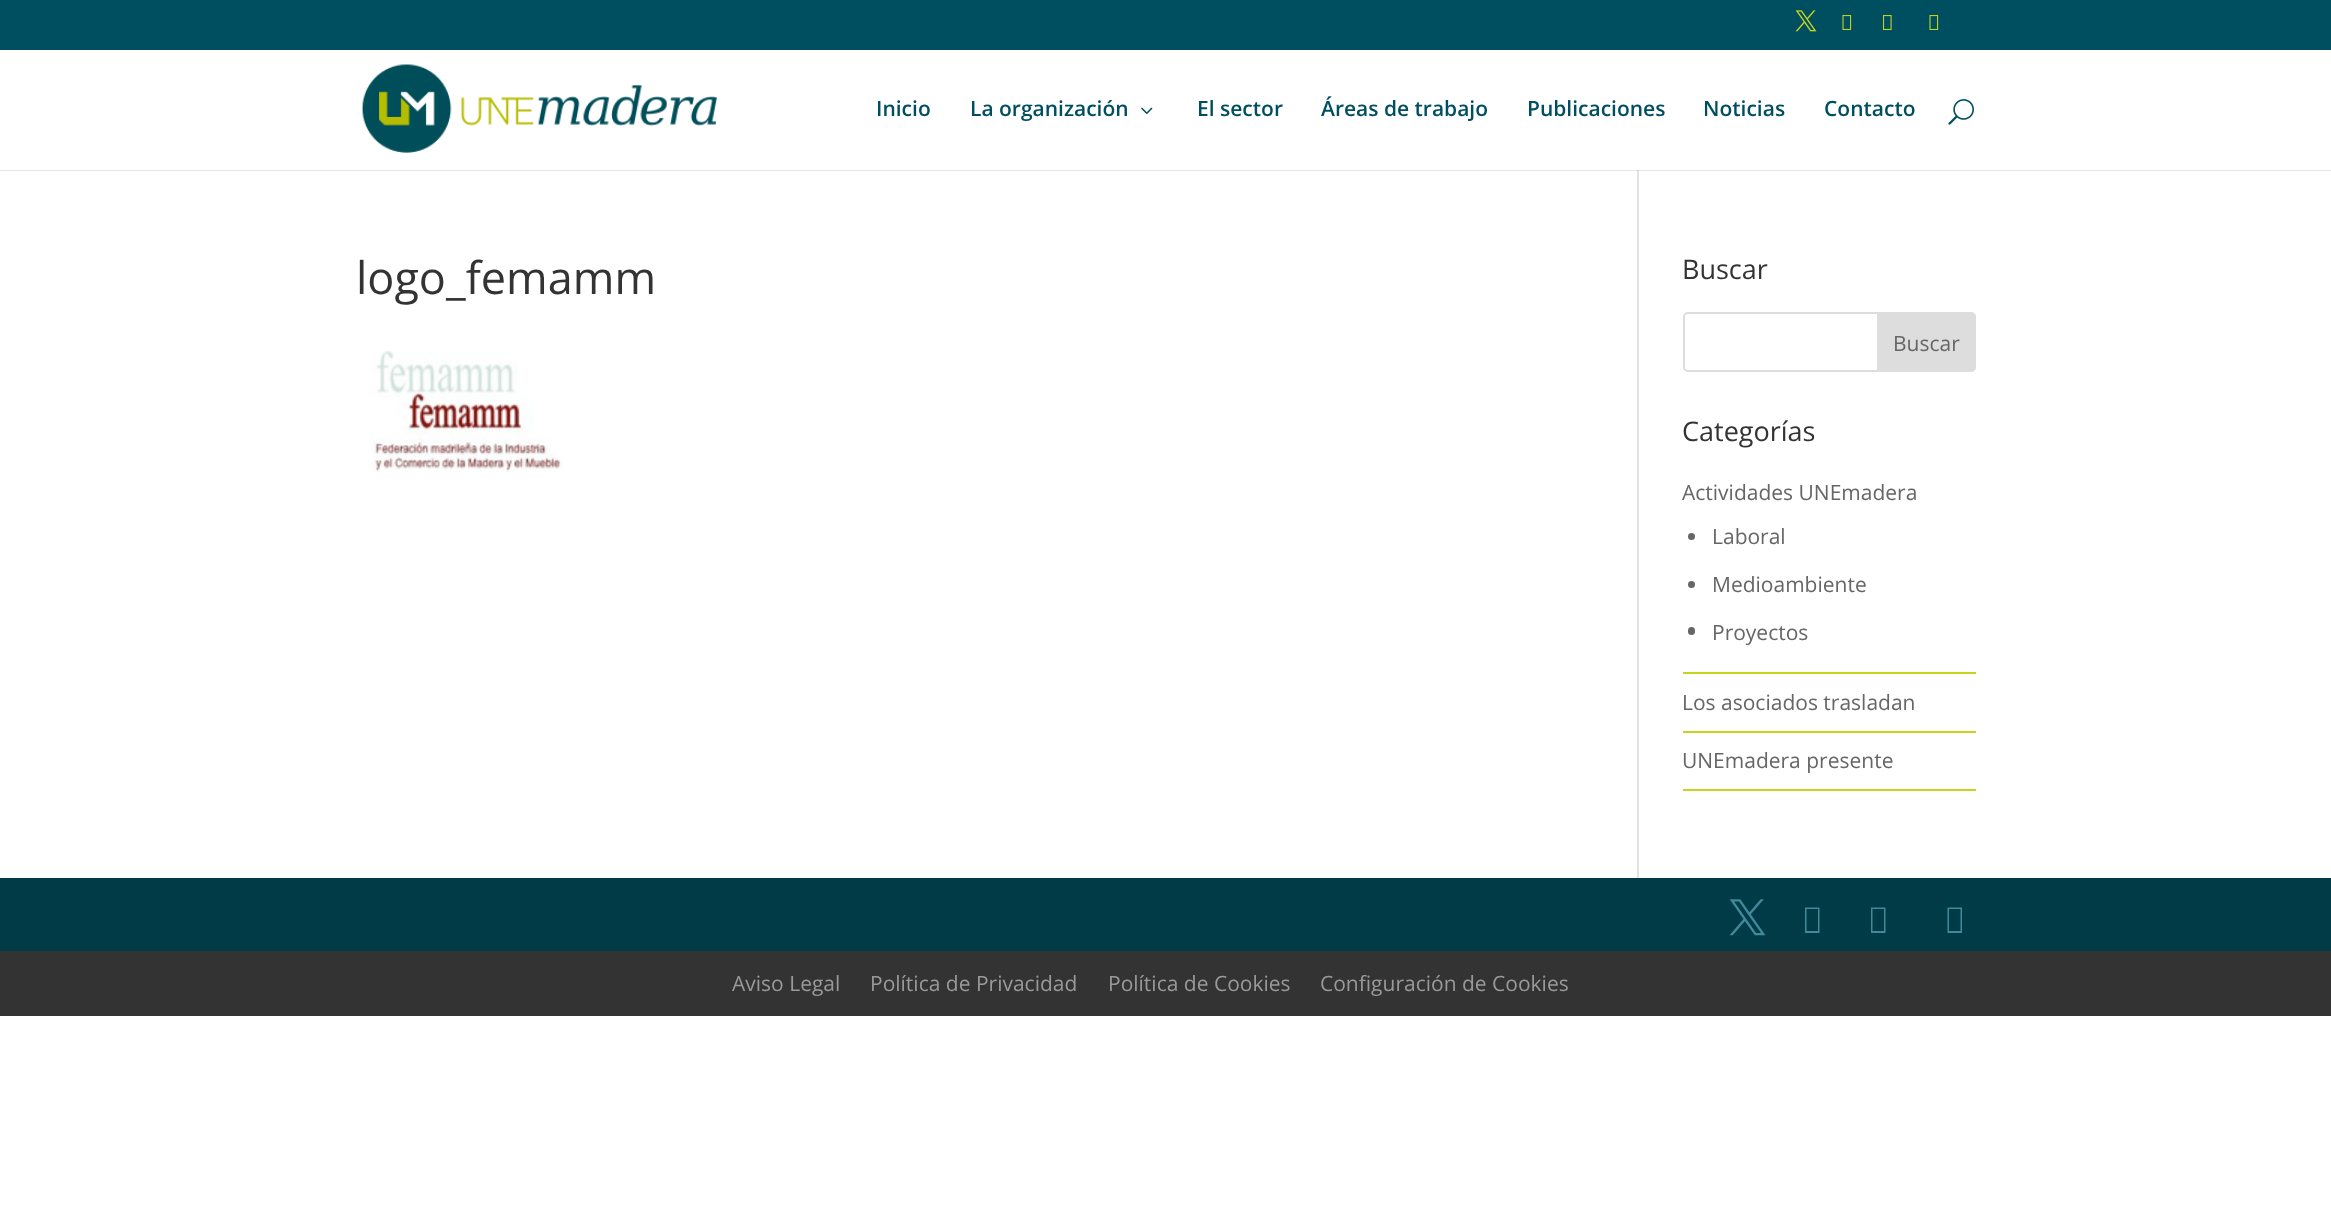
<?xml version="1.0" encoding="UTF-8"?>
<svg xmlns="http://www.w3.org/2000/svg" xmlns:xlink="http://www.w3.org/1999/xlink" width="2331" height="1207">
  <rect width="100%" height="100%" fill="#ffffff" />
  <rect y="170" width="2331" height="1" fill="#e6e6e6" />
  <rect width="2331" height="50" fill="#004f60" />
  <image x="1795" y="10" width="22" height="22" xlink:href="image1.png" />
  <image x="1842" y="15" width="10" height="15" xlink:href="image2.png" />
  <image x="1882" y="15" width="10" height="15" xlink:href="image3.png" />
  <image x="1929" y="15" width="10" height="15" xlink:href="image2.png" />
  <rect x="1637" y="168" width="2" height="710" fill="#e2e2e2" />
  <rect x="1637" y="168" width="2" height="2" fill="#ffffff" />
  <image x="361" y="64" width="356" height="89" xlink:href="image4.png" />
  <image x="1141" y="107" width="12" height="7" xlink:href="image5.png" />
  <image x="1948" y="99" width="26" height="26" xlink:href="image6.png" />
  <rect x="1637" y="170" width="2" height="1" fill="#cbcbcb" />
  <image x="369" y="351" width="195" height="122" xlink:href="image7.png" />
  <rect x="1684" y="313" width="291" height="58" rx="4" fill="none" stroke="#dddddd" stroke-width="2" />
  <path d="M 1878 313 h 93 c 2 0 4 2 4 4 v 50 c 0 2 -2 4 -4 4 h -93 z" fill="#dddddd" stroke="#dddddd" stroke-width="2" />
  <rect x="1683" y="672" width="293" height="2" fill="#c7d41e" />
  <circle cx="1691.5" cy="536.5" r="3.5" fill="#666666" />
  <circle cx="1691.5" cy="584.5" r="3.5" fill="#666666" />
  <rect x="1688" y="627" width="7" height="8" rx="3.5" fill="#666666" />
  <rect x="1683" y="731" width="293" height="2" fill="#c7d41e" />
  <rect x="1683" y="789" width="293" height="2" fill="#c7d41e" />
  <rect y="878" width="2331" height="73" fill="#013b48" />
  <image x="1729" y="899" width="37" height="37" xlink:href="image8.png" />
  <path d="M 1805 933 v -25.5 h 14.5 v 25.5 z m 1.5 -2 h 11.5 v -22 h -11.5 z" fill="#428a99" />
  <path d="M 1871 933 v -25.5 h 14.5 v 25.5 z m 1.5 -2 h 11.5 v -22 h -11.5 z" fill="#428a99" />
  <path d="M 1947.5 933 v -25.5 h 14.5 v 25.5 z m 1.5 -2 h 11.5 v -22 h -11.5 z" fill="#428a99" />
  <rect y="951" width="2331" height="65" fill="#333333" />
  <text x="876" y="116" style="font-family: Open Sans; font-size: 21px; font-weight: 600; fill: #004f60">Inicio</text>
  <text x="970" y="116" style="font-family: Open Sans; font-size: 21px; font-weight: 600; fill: #004f60">La organización</text>
  <text x="1197" y="116" style="font-family: Open Sans; font-size: 21px; font-weight: 600; fill: #004f60">El sector</text>
  <text x="1321" y="116" style="font-family: Open Sans; font-size: 21px; font-weight: 600; fill: #004f60">Áreas de trabajo</text>
  <text x="1527" y="116" style="font-family: Open Sans; font-size: 21px; font-weight: 600; fill: #004f60">Publicaciones</text>
  <text x="1703" y="116" style="font-family: Open Sans; font-size: 21px; font-weight: 600; fill: #004f60">Noticias</text>
  <text x="1824" y="116" style="font-family: Open Sans; font-size: 21px; font-weight: 600; fill: #004f60">Contacto</text>
  <text x="356" y="294" style="font-family: Open Sans; font-size: 45px; fill: #333333">logo_femamm</text>
  <text x="1682" y="279" style="font-family: Open Sans; font-size: 27px; fill: #333333">Buscar</text>
  <text x="1893" y="351" style="font-family: Open Sans; font-size: 21px; fill: #666666">Buscar</text>
  <text x="1682" y="441" style="font-family: Open Sans; font-size: 27px; fill: #333333">Categorías</text>
  <text x="1682" y="500" style="font-family: Open Sans; font-size: 21px; fill: #666666">Actividades UNEmadera</text>
  <text x="1712" y="544" style="font-family: Open Sans; font-size: 21px; fill: #666666">Laboral</text>
  <text x="1712" y="592" style="font-family: Open Sans; font-size: 21px; fill: #666666">Medioambiente</text>
  <text x="1712" y="640" style="font-family: Open Sans; font-size: 21px; fill: #666666">Proyectos</text>
  <text x="1682" y="710" style="font-family: Open Sans; font-size: 21px; fill: #666666">Los asociados trasladan</text>
  <text x="1682" y="768" style="font-family: Open Sans; font-size: 21px; fill: #666666">UNEmadera presente</text>
  <text x="732" y="991" style="font-family: Open Sans; font-size: 21px; fill: #999999">Aviso Legal</text>
  <text x="870" y="991" style="font-family: Open Sans; font-size: 21px; fill: #999999">Política de Privacidad</text>
  <text x="1108" y="991" style="font-family: Open Sans; font-size: 21px; fill: #999999">Política de Cookies</text>
  <text x="1320" y="991" style="font-family: Open Sans; font-size: 21px; fill: #999999">Configuración de Cookies</text>
</svg>
